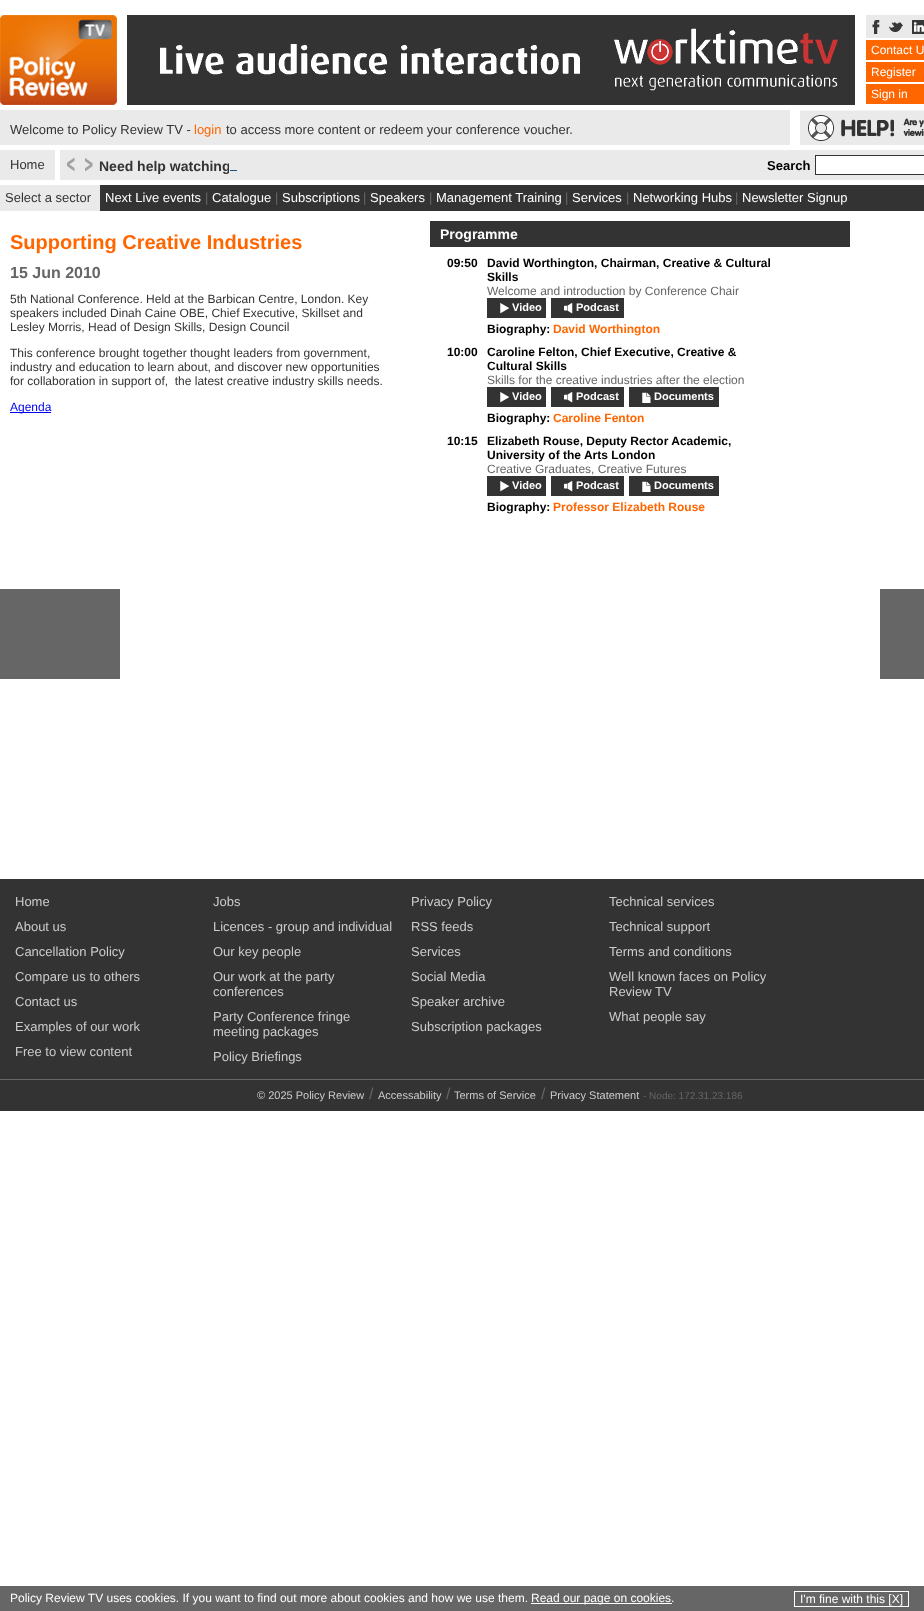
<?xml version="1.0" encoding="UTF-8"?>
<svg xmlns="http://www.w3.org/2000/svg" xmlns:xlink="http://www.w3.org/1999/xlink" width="924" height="1611">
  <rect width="100%" height="100%" fill="#ffffff" />
  <image x="0" y="15" width="117" height="90" xlink:href="image1.png" />
  <image x="127" y="15" width="728" height="90" xlink:href="image2.png" />
  <rect x="866" y="15" width="58" height="23" fill="#eaeaea" />
  <image x="872" y="20" width="8" height="14" xlink:href="image3.png" />
  <image x="889" y="22" width="14" height="10" xlink:href="image4.png" />
  <image x="912" y="20" width="12" height="14" xlink:href="image5.png" />
  <rect x="866" y="40" width="58" height="20" fill="#ff6600" />
  <rect x="866" y="62" width="58" height="20" fill="#ff6600" />
  <rect x="866" y="84" width="58" height="20" fill="#ff6600" />
  <rect y="110" width="790" height="35" fill="#eaeaea" />
  <image x="800" y="110" width="124" height="35" xlink:href="image6.png" />
  <rect y="150" width="55" height="30" fill="#eaeaea" />
  <rect x="60" y="150" width="864" height="30" fill="#eaeaea" />
  <image x="67" y="157" width="8" height="14" xlink:href="image7.png" />
  <image x="85" y="158" width="8" height="14" xlink:href="image8.png" />
  <rect x="230" y="170" width="7" height="1" fill="#1f527b" />
  <rect x="815.5" y="155.5" width="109" height="19" fill="#ffffff" stroke="#333333" />
  <rect y="185" width="100" height="26" fill="#eaeaea" />
  <rect x="100" y="185" width="824" height="26" fill="#333333" />
  <rect x="10" y="412" width="41" height="1" fill="#0000ee" />
  <rect x="430" y="221" width="420" height="26" fill="#333333" />
  <rect x="487" y="298" width="59" height="20" fill="#333333" />
  <image x="500" y="303" width="9" height="11" xlink:href="image9.png" />
  <rect x="551" y="298" width="73" height="20" fill="#333333" />
  <image x="564" y="303" width="9" height="11" xlink:href="image10.png" />
  <rect x="487" y="387" width="59" height="20" fill="#333333" />
  <image x="500" y="392" width="9" height="11" xlink:href="image9.png" />
  <rect x="551" y="387" width="73" height="20" fill="#333333" />
  <image x="564" y="392" width="9" height="11" xlink:href="image10.png" />
  <rect x="629" y="387" width="90" height="20" fill="#333333" />
  <image x="642" y="392" width="9" height="11" xlink:href="image11.png" />
  <rect x="487" y="476" width="59" height="20" fill="#333333" />
  <image x="500" y="481" width="9" height="11" xlink:href="image9.png" />
  <rect x="551" y="476" width="73" height="20" fill="#333333" />
  <image x="564" y="481" width="9" height="11" xlink:href="image10.png" />
  <rect x="629" y="476" width="90" height="20" fill="#333333" />
  <image x="642" y="481" width="9" height="11" xlink:href="image11.png" />
  <rect y="589" width="120" height="90" fill="#666666" />
  <rect x="880" y="589" width="44" height="90" fill="#666666" />
  <rect y="879" width="924" height="200" fill="#333333" />
  <rect y="1080" width="924" height="31" fill="#333333" />
  <rect y="1079" width="924" height="1" fill="#666666" />
  <rect y="1586" width="924" height="25" fill="#666666" />
  <rect x="531" y="1603" width="141" height="1" fill="#ffffff" />
  <rect x="794.5" y="1591.5" width="114" height="15" fill="none" stroke="#ffffff" />
  <text x="871" y="54" style="font-family: Liberation Sans; font-size: 12px; fill: #ffffff">Contact U</text>
  <text x="871" y="76" style="font-family: Liberation Sans; font-size: 12px; fill: #ffffff">Register</text>
  <text x="871" y="98" style="font-family: Liberation Sans; font-size: 12px; fill: #ffffff">Sign in</text>
  <text x="10" y="134" style="font-family: Liberation Sans; font-size: 13px; fill: #333333">Welcome to Policy Review TV -</text>
  <text x="194" y="134" style="font-family: Liberation Sans; font-size: 13px; fill: #ff6600">login</text>
  <text x="226" y="134" style="font-family: Liberation Sans; font-size: 13px; fill: #333333">to access more content or redeem your conference voucher.</text>
  <text x="10" y="169" style="font-family: Liberation Sans; font-size: 13px; fill: #333333">Home</text>
  <text x="99" y="171" style="font-family: Liberation Sans; font-size: 14px; font-weight: bold; fill: #333333">Need help watching</text>
  <rect x="229" y="163" width="1" height="10" fill="#eaeaea" />
  <text x="767" y="170" style="font-family: Liberation Sans; font-size: 13px; font-weight: bold; fill: #000000">Search</text>
  <text x="5" y="202" style="font-family: Liberation Sans; font-size: 13px; fill: #333333">Select a sector</text>
  <text x="105" y="202" style="font-family: Liberation Sans; font-size: 13px; fill: #ffffff">Next Live events</text>
  <text x="205" y="202" style="font-family: Liberation Sans; font-size: 13px; fill: #666666">|</text>
  <text x="212" y="202" style="font-family: Liberation Sans; font-size: 13px; fill: #ffffff">Catalogue</text>
  <text x="275" y="202" style="font-family: Liberation Sans; font-size: 13px; fill: #666666">|</text>
  <text x="282" y="202" style="font-family: Liberation Sans; font-size: 13px; fill: #ffffff">Subscriptions</text>
  <text x="363" y="202" style="font-family: Liberation Sans; font-size: 13px; fill: #666666">|</text>
  <text x="370" y="202" style="font-family: Liberation Sans; font-size: 13px; fill: #ffffff">Speakers</text>
  <text x="429" y="202" style="font-family: Liberation Sans; font-size: 13px; fill: #666666">|</text>
  <text x="436" y="202" style="font-family: Liberation Sans; font-size: 13px; fill: #ffffff">Management Training</text>
  <text x="565" y="202" style="font-family: Liberation Sans; font-size: 13px; fill: #666666">|</text>
  <text x="572" y="202" style="font-family: Liberation Sans; font-size: 13px; fill: #ffffff">Services</text>
  <text x="626" y="202" style="font-family: Liberation Sans; font-size: 13px; fill: #666666">|</text>
  <text x="633" y="202" style="font-family: Liberation Sans; font-size: 13px; fill: #ffffff">Networking Hubs</text>
  <text x="735" y="202" style="font-family: Liberation Sans; font-size: 13px; fill: #666666">|</text>
  <text x="742" y="202" style="font-family: Liberation Sans; font-size: 13px; fill: #ffffff">Newsletter Signup</text>
  <text x="10" y="249" style="font-family: Liberation Sans; font-size: 20px; font-weight: bold; fill: #ff6600">Supporting Creative Industries</text>
  <text x="10" y="278" style="font-family: Liberation Sans; font-size: 16px; font-weight: bold; fill: #666666">15 Jun 2010</text>
  <text x="10" y="303" style="font-family: Liberation Sans; font-size: 12px; fill: #333333">5th National Conference. Held at the Barbican Centre, London. Key</text>
  <text x="10" y="317" style="font-family: Liberation Sans; font-size: 12px; fill: #333333">speakers included Dinah Caine OBE, Chief Executive, Skillset and</text>
  <text x="10" y="331" style="font-family: Liberation Sans; font-size: 12px; fill: #333333">Lesley Morris, Head of Design Skills, Design Council</text>
  <text x="10" y="357" style="font-family: Liberation Sans; font-size: 12px; fill: #333333">This conference brought together thought leaders from government,</text>
  <text x="10" y="371" style="font-family: Liberation Sans; font-size: 12px; fill: #333333">industry and education to learn about, and discover new opportunities</text>
  <text x="10" y="385" style="font-family: Liberation Sans; font-size: 12px; fill: #333333" xml:space="preserve">for collaboration in support of,  the latest creative industry skills needs.</text>
  <text x="10" y="411" style="font-family: Liberation Sans; font-size: 12px; fill: #0000ee">Agenda</text>
  <text x="440" y="239" style="font-family: Liberation Sans; font-size: 14px; font-weight: bold; fill: #ffffff">Programme</text>
  <text x="447" y="267" style="font-family: Liberation Sans; font-size: 12px; font-weight: bold; fill: #000000">09:50</text>
  <text x="487" y="267" style="font-family: Liberation Sans; font-size: 12px; font-weight: bold; fill: #000000">David Worthington, Chairman, Creative &amp; Cultural</text>
  <text x="487" y="281" style="font-family: Liberation Sans; font-size: 12px; font-weight: bold; fill: #000000">Skills</text>
  <text x="487" y="295" style="font-family: Liberation Sans; font-size: 12px; fill: #666666">Welcome and introduction by Conference Chair</text>
  <text x="512" y="311" style="font-family: Liberation Sans; font-size: 11px; font-weight: bold; fill: #ffffff">Video</text>
  <text x="576" y="311" style="font-family: Liberation Sans; font-size: 11px; font-weight: bold; fill: #ffffff">Podcast</text>
  <text x="487" y="333" style="font-family: Liberation Sans; font-size: 12px; font-weight: bold; fill: #000000">Biography:</text>
  <text x="553" y="333" style="font-family: Liberation Sans; font-size: 12px; font-weight: bold; fill: #ff6600">David Worthington</text>
  <text x="447" y="356" style="font-family: Liberation Sans; font-size: 12px; font-weight: bold; fill: #000000">10:00</text>
  <text x="487" y="356" style="font-family: Liberation Sans; font-size: 12px; font-weight: bold; fill: #000000">Caroline Felton, Chief Executive, Creative &amp;</text>
  <text x="487" y="370" style="font-family: Liberation Sans; font-size: 12px; font-weight: bold; fill: #000000">Cultural Skills</text>
  <text x="487" y="384" style="font-family: Liberation Sans; font-size: 12px; fill: #666666">Skills for the creative industries after the election</text>
  <text x="512" y="400" style="font-family: Liberation Sans; font-size: 11px; font-weight: bold; fill: #ffffff">Video</text>
  <text x="576" y="400" style="font-family: Liberation Sans; font-size: 11px; font-weight: bold; fill: #ffffff">Podcast</text>
  <text x="654" y="400" style="font-family: Liberation Sans; font-size: 11px; font-weight: bold; fill: #ffffff">Documents</text>
  <text x="487" y="422" style="font-family: Liberation Sans; font-size: 12px; font-weight: bold; fill: #000000">Biography:</text>
  <text x="553" y="422" style="font-family: Liberation Sans; font-size: 12px; font-weight: bold; fill: #ff6600">Caroline Fenton</text>
  <text x="447" y="445" style="font-family: Liberation Sans; font-size: 12px; font-weight: bold; fill: #000000">10:15</text>
  <text x="487" y="445" style="font-family: Liberation Sans; font-size: 12px; font-weight: bold; fill: #000000">Elizabeth Rouse, Deputy Rector Academic,</text>
  <text x="487" y="459" style="font-family: Liberation Sans; font-size: 12px; font-weight: bold; fill: #000000">University of the Arts London</text>
  <text x="487" y="473" style="font-family: Liberation Sans; font-size: 12px; fill: #666666">Creative Graduates, Creative Futures</text>
  <text x="512" y="489" style="font-family: Liberation Sans; font-size: 11px; font-weight: bold; fill: #ffffff">Video</text>
  <text x="576" y="489" style="font-family: Liberation Sans; font-size: 11px; font-weight: bold; fill: #ffffff">Podcast</text>
  <text x="654" y="489" style="font-family: Liberation Sans; font-size: 11px; font-weight: bold; fill: #ffffff">Documents</text>
  <text x="487" y="511" style="font-family: Liberation Sans; font-size: 12px; font-weight: bold; fill: #000000">Biography:</text>
  <text x="553" y="511" style="font-family: Liberation Sans; font-size: 12px; font-weight: bold; fill: #ff6600">Professor Elizabeth Rouse</text>
  <text x="15" y="906" style="font-family: Liberation Sans; font-size: 13px; fill: #cccccc">Home</text>
  <text x="15" y="931" style="font-family: Liberation Sans; font-size: 13px; fill: #cccccc">About us</text>
  <text x="15" y="956" style="font-family: Liberation Sans; font-size: 13px; fill: #cccccc">Cancellation Policy</text>
  <text x="15" y="981" style="font-family: Liberation Sans; font-size: 13px; fill: #cccccc">Compare us to others</text>
  <text x="15" y="1006" style="font-family: Liberation Sans; font-size: 13px; fill: #cccccc">Contact us</text>
  <text x="15" y="1031" style="font-family: Liberation Sans; font-size: 13px; fill: #cccccc">Examples of our work</text>
  <text x="15" y="1056" style="font-family: Liberation Sans; font-size: 13px; fill: #cccccc">Free to view content</text>
  <text x="213" y="906" style="font-family: Liberation Sans; font-size: 13px; fill: #cccccc">Jobs</text>
  <text x="213" y="931" style="font-family: Liberation Sans; font-size: 13px; fill: #cccccc">Licences - group and individual</text>
  <text x="213" y="956" style="font-family: Liberation Sans; font-size: 13px; fill: #cccccc">Our key people</text>
  <text x="213" y="981" style="font-family: Liberation Sans; font-size: 13px; fill: #cccccc">Our work at the party</text>
  <text x="213" y="996" style="font-family: Liberation Sans; font-size: 13px; fill: #cccccc">conferences</text>
  <text x="213" y="1021" style="font-family: Liberation Sans; font-size: 13px; fill: #cccccc">Party Conference fringe</text>
  <text x="213" y="1036" style="font-family: Liberation Sans; font-size: 13px; fill: #cccccc">meeting packages</text>
  <text x="213" y="1061" style="font-family: Liberation Sans; font-size: 13px; fill: #cccccc">Policy Briefings</text>
  <text x="411" y="906" style="font-family: Liberation Sans; font-size: 13px; fill: #cccccc">Privacy Policy</text>
  <text x="411" y="931" style="font-family: Liberation Sans; font-size: 13px; fill: #cccccc">RSS feeds</text>
  <text x="411" y="956" style="font-family: Liberation Sans; font-size: 13px; fill: #cccccc">Services</text>
  <text x="411" y="981" style="font-family: Liberation Sans; font-size: 13px; fill: #cccccc">Social Media</text>
  <text x="411" y="1006" style="font-family: Liberation Sans; font-size: 13px; fill: #cccccc">Speaker archive</text>
  <text x="411" y="1031" style="font-family: Liberation Sans; font-size: 13px; fill: #cccccc">Subscription packages</text>
  <text x="609" y="906" style="font-family: Liberation Sans; font-size: 13px; fill: #cccccc">Technical services</text>
  <text x="609" y="931" style="font-family: Liberation Sans; font-size: 13px; fill: #cccccc">Technical support</text>
  <text x="609" y="956" style="font-family: Liberation Sans; font-size: 13px; fill: #cccccc">Terms and conditions</text>
  <text x="609" y="981" style="font-family: Liberation Sans; font-size: 13px; fill: #cccccc">Well known faces on Policy</text>
  <text x="609" y="996" style="font-family: Liberation Sans; font-size: 13px; fill: #cccccc">Review TV</text>
  <text x="609" y="1021" style="font-family: Liberation Sans; font-size: 13px; fill: #cccccc">What people say</text>
  <text x="257" y="1099" style="font-family: Liberation Sans; font-size: 11px; fill: #cccccc">© 2025 Policy Review</text>
  <text x="369" y="1099" style="font-family: Liberation Sans; font-size: 16px; fill: #666666">/</text>
  <text x="378" y="1099" style="font-family: Liberation Sans; font-size: 11px; fill: #cccccc">Accessability</text>
  <text x="446" y="1099" style="font-family: Liberation Sans; font-size: 16px; fill: #666666">/</text>
  <text x="454" y="1099" style="font-family: Liberation Sans; font-size: 11px; fill: #cccccc">Terms of Service</text>
  <text x="541" y="1099" style="font-family: Liberation Sans; font-size: 16px; fill: #666666">/</text>
  <text x="550" y="1099" style="font-family: Liberation Sans; font-size: 11px; fill: #cccccc">Privacy Statement</text>
  <text x="643" y="1099" style="font-family: Liberation Sans; font-size: 10px; fill: #666666">- Node: 172.31.23.186</text>
  <text x="10" y="1602" style="font-family: Liberation Sans; font-size: 12px; fill: #ffffff">Policy Review TV uses cookies. If you want to find out more about cookies and how we use them.</text>
  <text x="531" y="1602" style="font-family: Liberation Sans; font-size: 12px; fill: #ffffff">Read our page on cookies.</text>
  <text x="800" y="1603" style="font-family: Liberation Sans; font-size: 12px; fill: #ffffff">I'm fine with this [X]</text>
</svg>
